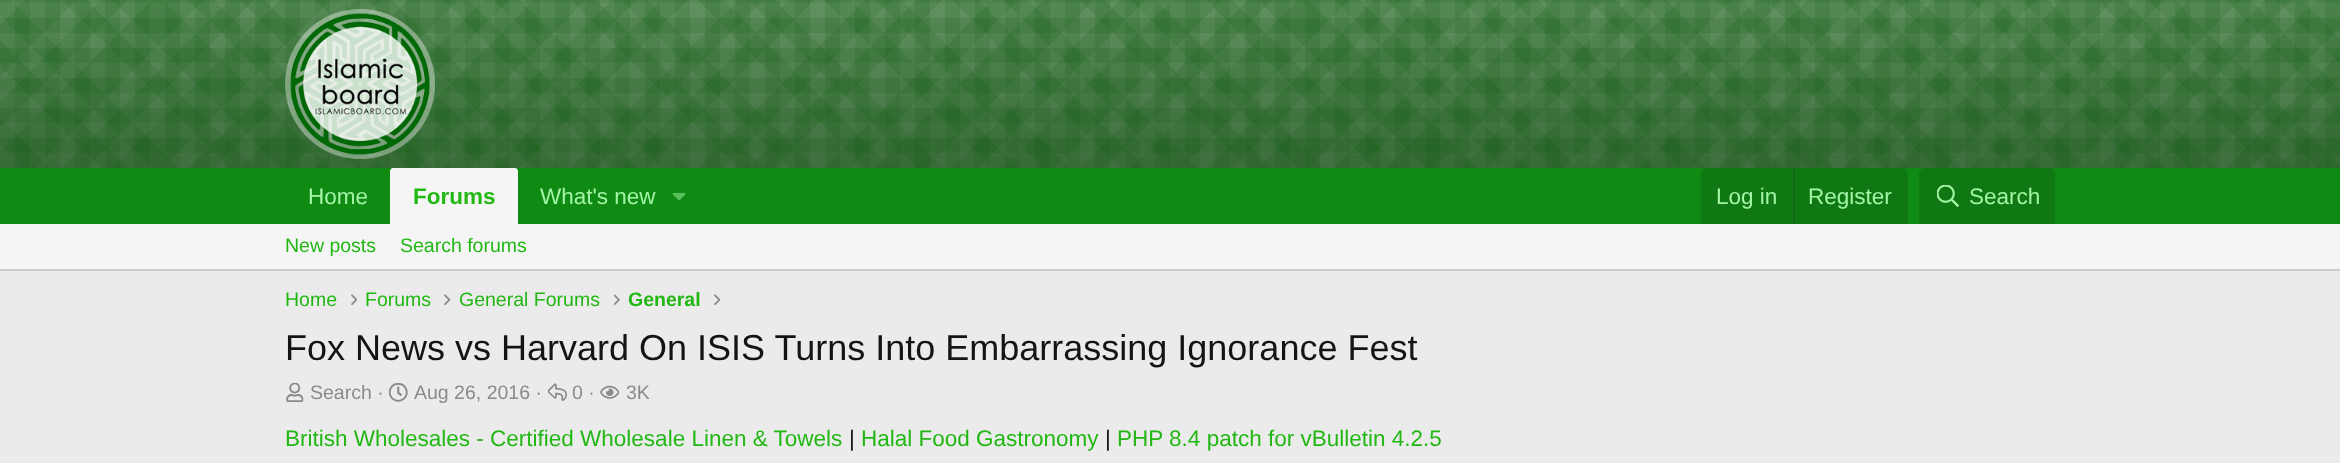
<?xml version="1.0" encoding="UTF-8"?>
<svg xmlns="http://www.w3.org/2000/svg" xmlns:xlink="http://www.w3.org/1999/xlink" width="2340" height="463">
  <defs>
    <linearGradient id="g1" gradientUnits="userSpaceOnUse" x1="1170" y1="0" x2="1170" y2="168"><stop offset="0" stop-color="#becebe" /><stop offset="1" stop-color="#7a8b7a" /></linearGradient>
    <linearGradient id="g2" gradientUnits="userSpaceOnUse" x1="1170" y1="0" x2="1170" y2="168"><stop offset="0" stop-color="#a6bea6" /><stop offset="1" stop-color="#6b846b" /></linearGradient>
    <linearGradient id="g3" gradientUnits="userSpaceOnUse" x1="543" y1="-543" x2="1816" y2="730"><stop offset="0" stop-color="#005200" stop-opacity="0.2" /><stop offset="0.01" stop-color="#005200" stop-opacity="0.2" /><stop offset="0.01" stop-color="#005200" stop-opacity="0.3" /><stop offset="0.02" stop-color="#005200" stop-opacity="0.3" /><stop offset="0.02" stop-color="#005200" stop-opacity="0.2" /><stop offset="0.02" stop-color="#005200" stop-opacity="0.2" /><stop offset="0.02" stop-color="#005200" stop-opacity="0.3" /><stop offset="0.03" stop-color="#005200" stop-opacity="0.3" /><stop offset="0.03" stop-color="#005200" stop-opacity="0.2" /><stop offset="0.04" stop-color="#005200" stop-opacity="0.2" /><stop offset="0.04" stop-color="#005200" stop-opacity="0.3" /><stop offset="0.05" stop-color="#005200" stop-opacity="0.3" /><stop offset="0.05" stop-color="#005200" stop-opacity="0.2" /><stop offset="0.06" stop-color="#005200" stop-opacity="0.2" /><stop offset="0.06" stop-color="#005200" stop-opacity="0.3" /><stop offset="0.07" stop-color="#005200" stop-opacity="0.3" /><stop offset="0.07" stop-color="#005200" stop-opacity="0.2" /><stop offset="0.07" stop-color="#005200" stop-opacity="0.2" /><stop offset="0.07" stop-color="#005200" stop-opacity="0.3" /><stop offset="0.08" stop-color="#005200" stop-opacity="0.3" /><stop offset="0.08" stop-color="#005200" stop-opacity="0.2" /><stop offset="0.09" stop-color="#005200" stop-opacity="0.2" /><stop offset="0.09" stop-color="#005200" stop-opacity="0.3" /><stop offset="0.1" stop-color="#005200" stop-opacity="0.3" /><stop offset="0.1" stop-color="#005200" stop-opacity="0.2" /><stop offset="0.11" stop-color="#005200" stop-opacity="0.2" /><stop offset="0.11" stop-color="#005200" stop-opacity="0.3" /><stop offset="0.12" stop-color="#005200" stop-opacity="0.3" /><stop offset="0.12" stop-color="#005200" stop-opacity="0.2" /><stop offset="0.12" stop-color="#005200" stop-opacity="0.2" /><stop offset="0.12" stop-color="#005200" stop-opacity="0.3" /><stop offset="0.13" stop-color="#005200" stop-opacity="0.3" /><stop offset="0.13" stop-color="#005200" stop-opacity="0.2" /><stop offset="0.14" stop-color="#005200" stop-opacity="0.2" /><stop offset="0.14" stop-color="#005200" stop-opacity="0.3" /><stop offset="0.15" stop-color="#005200" stop-opacity="0.3" /><stop offset="0.15" stop-color="#005200" stop-opacity="0.2" /><stop offset="0.16" stop-color="#005200" stop-opacity="0.2" /><stop offset="0.16" stop-color="#005200" stop-opacity="0.3" /><stop offset="0.17" stop-color="#005200" stop-opacity="0.3" /><stop offset="0.17" stop-color="#005200" stop-opacity="0.2" /><stop offset="0.17" stop-color="#005200" stop-opacity="0.2" /><stop offset="0.17" stop-color="#005200" stop-opacity="0.3" /><stop offset="0.18" stop-color="#005200" stop-opacity="0.3" /><stop offset="0.18" stop-color="#005200" stop-opacity="0.2" /><stop offset="0.19" stop-color="#005200" stop-opacity="0.2" /><stop offset="0.19" stop-color="#005200" stop-opacity="0.3" /><stop offset="0.2" stop-color="#005200" stop-opacity="0.3" /><stop offset="0.2" stop-color="#005200" stop-opacity="0.2" /><stop offset="0.21" stop-color="#005200" stop-opacity="0.2" /><stop offset="0.21" stop-color="#005200" stop-opacity="0.3" /><stop offset="0.22" stop-color="#005200" stop-opacity="0.3" /><stop offset="0.22" stop-color="#005200" stop-opacity="0.2" /><stop offset="0.22" stop-color="#005200" stop-opacity="0.2" /><stop offset="0.22" stop-color="#005200" stop-opacity="0.3" /><stop offset="0.23" stop-color="#005200" stop-opacity="0.3" /><stop offset="0.23" stop-color="#005200" stop-opacity="0.2" /><stop offset="0.24" stop-color="#005200" stop-opacity="0.2" /><stop offset="0.24" stop-color="#005200" stop-opacity="0.3" /><stop offset="0.25" stop-color="#005200" stop-opacity="0.3" /><stop offset="0.25" stop-color="#005200" stop-opacity="0.2" /><stop offset="0.26" stop-color="#005200" stop-opacity="0.2" /><stop offset="0.26" stop-color="#005200" stop-opacity="0.3" /><stop offset="0.27" stop-color="#005200" stop-opacity="0.3" /><stop offset="0.27" stop-color="#005200" stop-opacity="0.2" /><stop offset="0.28" stop-color="#005200" stop-opacity="0.2" /><stop offset="0.28" stop-color="#005200" stop-opacity="0.3" /><stop offset="0.28" stop-color="#005200" stop-opacity="0.3" /><stop offset="0.28" stop-color="#005200" stop-opacity="0.2" /><stop offset="0.29" stop-color="#005200" stop-opacity="0.2" /><stop offset="0.29" stop-color="#005200" stop-opacity="0.3" /><stop offset="0.3" stop-color="#005200" stop-opacity="0.3" /><stop offset="0.3" stop-color="#005200" stop-opacity="0.2" /><stop offset="0.31" stop-color="#005200" stop-opacity="0.2" /><stop offset="0.31" stop-color="#005200" stop-opacity="0.3" /><stop offset="0.32" stop-color="#005200" stop-opacity="0.3" /><stop offset="0.32" stop-color="#005200" stop-opacity="0.2" /><stop offset="0.33" stop-color="#005200" stop-opacity="0.2" /><stop offset="0.33" stop-color="#005200" stop-opacity="0.3" /><stop offset="0.33" stop-color="#005200" stop-opacity="0.3" /><stop offset="0.33" stop-color="#005200" stop-opacity="0.2" /><stop offset="0.34" stop-color="#005200" stop-opacity="0.2" /><stop offset="0.34" stop-color="#005200" stop-opacity="0.3" /><stop offset="0.35" stop-color="#005200" stop-opacity="0.3" /><stop offset="0.35" stop-color="#005200" stop-opacity="0.2" /><stop offset="0.36" stop-color="#005200" stop-opacity="0.2" /><stop offset="0.36" stop-color="#005200" stop-opacity="0.3" /><stop offset="0.37" stop-color="#005200" stop-opacity="0.3" /><stop offset="0.37" stop-color="#005200" stop-opacity="0.2" /><stop offset="0.38" stop-color="#005200" stop-opacity="0.2" /><stop offset="0.38" stop-color="#005200" stop-opacity="0.3" /><stop offset="0.38" stop-color="#005200" stop-opacity="0.3" /><stop offset="0.38" stop-color="#005200" stop-opacity="0.2" /><stop offset="0.39" stop-color="#005200" stop-opacity="0.2" /><stop offset="0.39" stop-color="#005200" stop-opacity="0.3" /><stop offset="0.4" stop-color="#005200" stop-opacity="0.3" /><stop offset="0.4" stop-color="#005200" stop-opacity="0.2" /><stop offset="0.41" stop-color="#005200" stop-opacity="0.2" /><stop offset="0.41" stop-color="#005200" stop-opacity="0.3" /><stop offset="0.42" stop-color="#005200" stop-opacity="0.3" /><stop offset="0.42" stop-color="#005200" stop-opacity="0.2" /><stop offset="0.42" stop-color="#005200" stop-opacity="0.2" /><stop offset="0.42" stop-color="#005200" stop-opacity="0.3" /><stop offset="0.43" stop-color="#005200" stop-opacity="0.3" /><stop offset="0.43" stop-color="#005200" stop-opacity="0.2" /><stop offset="0.44" stop-color="#005200" stop-opacity="0.2" /><stop offset="0.44" stop-color="#005200" stop-opacity="0.3" /><stop offset="0.45" stop-color="#005200" stop-opacity="0.3" /><stop offset="0.45" stop-color="#005200" stop-opacity="0.2" /><stop offset="0.46" stop-color="#005200" stop-opacity="0.2" /><stop offset="0.46" stop-color="#005200" stop-opacity="0.3" /><stop offset="0.47" stop-color="#005200" stop-opacity="0.3" /><stop offset="0.47" stop-color="#005200" stop-opacity="0.2" /><stop offset="0.47" stop-color="#005200" stop-opacity="0.2" /><stop offset="0.47" stop-color="#005200" stop-opacity="0.3" /><stop offset="0.48" stop-color="#005200" stop-opacity="0.3" /><stop offset="0.48" stop-color="#005200" stop-opacity="0.2" /><stop offset="0.49" stop-color="#005200" stop-opacity="0.2" /><stop offset="0.49" stop-color="#005200" stop-opacity="0.3" /><stop offset="0.5" stop-color="#005200" stop-opacity="0.3" /><stop offset="0.5" stop-color="#005200" stop-opacity="0.2" /><stop offset="0.51" stop-color="#005200" stop-opacity="0.2" /><stop offset="0.51" stop-color="#005200" stop-opacity="0.3" /><stop offset="0.52" stop-color="#005200" stop-opacity="0.3" /><stop offset="0.52" stop-color="#005200" stop-opacity="0.2" /><stop offset="0.52" stop-color="#005200" stop-opacity="0.2" /><stop offset="0.52" stop-color="#005200" stop-opacity="0.3" /><stop offset="0.53" stop-color="#005200" stop-opacity="0.3" /><stop offset="0.53" stop-color="#005200" stop-opacity="0.2" /><stop offset="0.54" stop-color="#005200" stop-opacity="0.2" /><stop offset="0.54" stop-color="#005200" stop-opacity="0.3" /><stop offset="0.55" stop-color="#005200" stop-opacity="0.3" /><stop offset="0.55" stop-color="#005200" stop-opacity="0.2" /><stop offset="0.56" stop-color="#005200" stop-opacity="0.2" /><stop offset="0.56" stop-color="#005200" stop-opacity="0.3" /><stop offset="0.57" stop-color="#005200" stop-opacity="0.3" /><stop offset="0.57" stop-color="#005200" stop-opacity="0.2" /><stop offset="0.57" stop-color="#005200" stop-opacity="0.2" /><stop offset="0.57" stop-color="#005200" stop-opacity="0.3" /><stop offset="0.58" stop-color="#005200" stop-opacity="0.3" /><stop offset="0.58" stop-color="#005200" stop-opacity="0.2" /><stop offset="0.59" stop-color="#005200" stop-opacity="0.2" /><stop offset="0.59" stop-color="#005200" stop-opacity="0.3" /><stop offset="0.6" stop-color="#005200" stop-opacity="0.3" /><stop offset="0.6" stop-color="#005200" stop-opacity="0.2" /><stop offset="0.61" stop-color="#005200" stop-opacity="0.2" /><stop offset="0.61" stop-color="#005200" stop-opacity="0.3" /><stop offset="0.62" stop-color="#005200" stop-opacity="0.3" /><stop offset="0.62" stop-color="#005200" stop-opacity="0.2" /><stop offset="0.62" stop-color="#005200" stop-opacity="0.2" /><stop offset="0.62" stop-color="#005200" stop-opacity="0.3" /><stop offset="0.63" stop-color="#005200" stop-opacity="0.3" /><stop offset="0.63" stop-color="#005200" stop-opacity="0.2" /><stop offset="0.64" stop-color="#005200" stop-opacity="0.2" /><stop offset="0.64" stop-color="#005200" stop-opacity="0.3" /><stop offset="0.65" stop-color="#005200" stop-opacity="0.3" /><stop offset="0.65" stop-color="#005200" stop-opacity="0.2" /><stop offset="0.66" stop-color="#005200" stop-opacity="0.2" /><stop offset="0.66" stop-color="#005200" stop-opacity="0.3" /><stop offset="0.67" stop-color="#005200" stop-opacity="0.3" /><stop offset="0.67" stop-color="#005200" stop-opacity="0.2" /><stop offset="0.67" stop-color="#005200" stop-opacity="0.2" /><stop offset="0.67" stop-color="#005200" stop-opacity="0.3" /><stop offset="0.68" stop-color="#005200" stop-opacity="0.3" /><stop offset="0.68" stop-color="#005200" stop-opacity="0.2" /><stop offset="0.69" stop-color="#005200" stop-opacity="0.2" /><stop offset="0.69" stop-color="#005200" stop-opacity="0.3" /><stop offset="0.7" stop-color="#005200" stop-opacity="0.3" /><stop offset="0.7" stop-color="#005200" stop-opacity="0.2" /><stop offset="0.71" stop-color="#005200" stop-opacity="0.2" /><stop offset="0.71" stop-color="#005200" stop-opacity="0.3" /><stop offset="0.72" stop-color="#005200" stop-opacity="0.3" /><stop offset="0.72" stop-color="#005200" stop-opacity="0.2" /><stop offset="0.72" stop-color="#005200" stop-opacity="0.2" /><stop offset="0.72" stop-color="#005200" stop-opacity="0.3" /><stop offset="0.73" stop-color="#005200" stop-opacity="0.3" /><stop offset="0.73" stop-color="#005200" stop-opacity="0.2" /><stop offset="0.74" stop-color="#005200" stop-opacity="0.2" /><stop offset="0.74" stop-color="#005200" stop-opacity="0.3" /><stop offset="0.75" stop-color="#005200" stop-opacity="0.3" /><stop offset="0.75" stop-color="#005200" stop-opacity="0.2" /><stop offset="0.76" stop-color="#005200" stop-opacity="0.2" /><stop offset="0.76" stop-color="#005200" stop-opacity="0.3" /><stop offset="0.77" stop-color="#005200" stop-opacity="0.3" /><stop offset="0.77" stop-color="#005200" stop-opacity="0.2" /><stop offset="0.77" stop-color="#005200" stop-opacity="0.2" /><stop offset="0.77" stop-color="#005200" stop-opacity="0.3" /><stop offset="0.78" stop-color="#005200" stop-opacity="0.3" /><stop offset="0.78" stop-color="#005200" stop-opacity="0.2" /><stop offset="0.79" stop-color="#005200" stop-opacity="0.2" /><stop offset="0.79" stop-color="#005200" stop-opacity="0.3" /><stop offset="0.8" stop-color="#005200" stop-opacity="0.3" /><stop offset="0.8" stop-color="#005200" stop-opacity="0.2" /><stop offset="0.81" stop-color="#005200" stop-opacity="0.2" /><stop offset="0.81" stop-color="#005200" stop-opacity="0.3" /><stop offset="0.82" stop-color="#005200" stop-opacity="0.3" /><stop offset="0.82" stop-color="#005200" stop-opacity="0.2" /><stop offset="0.82" stop-color="#005200" stop-opacity="0.2" /><stop offset="0.82" stop-color="#005200" stop-opacity="0.3" /><stop offset="0.83" stop-color="#005200" stop-opacity="0.3" /><stop offset="0.83" stop-color="#005200" stop-opacity="0.2" /><stop offset="0.84" stop-color="#005200" stop-opacity="0.2" /><stop offset="0.84" stop-color="#005200" stop-opacity="0.3" /><stop offset="0.85" stop-color="#005200" stop-opacity="0.3" /><stop offset="0.85" stop-color="#005200" stop-opacity="0.2" /><stop offset="0.86" stop-color="#005200" stop-opacity="0.2" /><stop offset="0.86" stop-color="#005200" stop-opacity="0.3" /><stop offset="0.87" stop-color="#005200" stop-opacity="0.3" /><stop offset="0.87" stop-color="#005200" stop-opacity="0.2" /><stop offset="0.87" stop-color="#005200" stop-opacity="0.2" /><stop offset="0.87" stop-color="#005200" stop-opacity="0.3" /><stop offset="0.88" stop-color="#005200" stop-opacity="0.3" /><stop offset="0.88" stop-color="#005200" stop-opacity="0.2" /><stop offset="0.89" stop-color="#005200" stop-opacity="0.2" /><stop offset="0.89" stop-color="#005200" stop-opacity="0.3" /><stop offset="0.9" stop-color="#005200" stop-opacity="0.3" /><stop offset="0.9" stop-color="#005200" stop-opacity="0.2" /><stop offset="0.91" stop-color="#005200" stop-opacity="0.2" /><stop offset="0.91" stop-color="#005200" stop-opacity="0.3" /><stop offset="0.92" stop-color="#005200" stop-opacity="0.3" /><stop offset="0.92" stop-color="#005200" stop-opacity="0.2" /><stop offset="0.92" stop-color="#005200" stop-opacity="0.2" /><stop offset="0.92" stop-color="#005200" stop-opacity="0.3" /><stop offset="0.93" stop-color="#005200" stop-opacity="0.3" /><stop offset="0.93" stop-color="#005200" stop-opacity="0.2" /><stop offset="0.94" stop-color="#005200" stop-opacity="0.2" /><stop offset="0.94" stop-color="#005200" stop-opacity="0.3" /><stop offset="0.95" stop-color="#005200" stop-opacity="0.3" /><stop offset="0.95" stop-color="#005200" stop-opacity="0.2" /><stop offset="0.96" stop-color="#005200" stop-opacity="0.2" /><stop offset="0.96" stop-color="#005200" stop-opacity="0.3" /><stop offset="0.97" stop-color="#005200" stop-opacity="0.3" /><stop offset="0.97" stop-color="#005200" stop-opacity="0.2" /><stop offset="0.97" stop-color="#005200" stop-opacity="0.2" /><stop offset="0.97" stop-color="#005200" stop-opacity="0.3" /><stop offset="0.98" stop-color="#005200" stop-opacity="0.3" /><stop offset="0.98" stop-color="#005200" stop-opacity="0.2" /><stop offset="0.99" stop-color="#005200" stop-opacity="0.2" /><stop offset="0.99" stop-color="#005200" stop-opacity="0.3" /><stop offset="1" stop-color="#005200" stop-opacity="0.3" /></linearGradient>
    <linearGradient id="g4" gradientUnits="userSpaceOnUse" x1="543" y1="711" x2="1816" y2="-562"><stop offset="0" stop-color="#005200" stop-opacity="0.2" /><stop offset="0.01" stop-color="#005200" stop-opacity="0.2" /><stop offset="0.01" stop-color="#005200" stop-opacity="0.3" /><stop offset="0.02" stop-color="#005200" stop-opacity="0.3" /><stop offset="0.02" stop-color="#005200" stop-opacity="0.2" /><stop offset="0.03" stop-color="#005200" stop-opacity="0.2" /><stop offset="0.03" stop-color="#005200" stop-opacity="0.3" /><stop offset="0.03" stop-color="#005200" stop-opacity="0.3" /><stop offset="0.03" stop-color="#005200" stop-opacity="0.2" /><stop offset="0.04" stop-color="#005200" stop-opacity="0.2" /><stop offset="0.04" stop-color="#005200" stop-opacity="0.3" /><stop offset="0.05" stop-color="#005200" stop-opacity="0.3" /><stop offset="0.05" stop-color="#005200" stop-opacity="0.2" /><stop offset="0.06" stop-color="#005200" stop-opacity="0.2" /><stop offset="0.06" stop-color="#005200" stop-opacity="0.3" /><stop offset="0.07" stop-color="#005200" stop-opacity="0.3" /><stop offset="0.07" stop-color="#005200" stop-opacity="0.2" /><stop offset="0.08" stop-color="#005200" stop-opacity="0.2" /><stop offset="0.08" stop-color="#005200" stop-opacity="0.3" /><stop offset="0.08" stop-color="#005200" stop-opacity="0.3" /><stop offset="0.08" stop-color="#005200" stop-opacity="0.2" /><stop offset="0.09" stop-color="#005200" stop-opacity="0.2" /><stop offset="0.09" stop-color="#005200" stop-opacity="0.3" /><stop offset="0.1" stop-color="#005200" stop-opacity="0.3" /><stop offset="0.1" stop-color="#005200" stop-opacity="0.2" /><stop offset="0.11" stop-color="#005200" stop-opacity="0.2" /><stop offset="0.11" stop-color="#005200" stop-opacity="0.3" /><stop offset="0.12" stop-color="#005200" stop-opacity="0.3" /><stop offset="0.12" stop-color="#005200" stop-opacity="0.2" /><stop offset="0.12" stop-color="#005200" stop-opacity="0.2" /><stop offset="0.12" stop-color="#005200" stop-opacity="0.3" /><stop offset="0.13" stop-color="#005200" stop-opacity="0.3" /><stop offset="0.13" stop-color="#005200" stop-opacity="0.2" /><stop offset="0.14" stop-color="#005200" stop-opacity="0.2" /><stop offset="0.14" stop-color="#005200" stop-opacity="0.3" /><stop offset="0.15" stop-color="#005200" stop-opacity="0.3" /><stop offset="0.15" stop-color="#005200" stop-opacity="0.2" /><stop offset="0.16" stop-color="#005200" stop-opacity="0.2" /><stop offset="0.16" stop-color="#005200" stop-opacity="0.3" /><stop offset="0.17" stop-color="#005200" stop-opacity="0.3" /><stop offset="0.17" stop-color="#005200" stop-opacity="0.2" /><stop offset="0.18" stop-color="#005200" stop-opacity="0.2" /><stop offset="0.18" stop-color="#005200" stop-opacity="0.3" /><stop offset="0.18" stop-color="#005200" stop-opacity="0.3" /><stop offset="0.18" stop-color="#005200" stop-opacity="0.2" /><stop offset="0.19" stop-color="#005200" stop-opacity="0.2" /><stop offset="0.19" stop-color="#005200" stop-opacity="0.3" /><stop offset="0.2" stop-color="#005200" stop-opacity="0.3" /><stop offset="0.2" stop-color="#005200" stop-opacity="0.2" /><stop offset="0.21" stop-color="#005200" stop-opacity="0.2" /><stop offset="0.21" stop-color="#005200" stop-opacity="0.3" /><stop offset="0.22" stop-color="#005200" stop-opacity="0.3" /><stop offset="0.22" stop-color="#005200" stop-opacity="0.2" /><stop offset="0.23" stop-color="#005200" stop-opacity="0.2" /><stop offset="0.23" stop-color="#005200" stop-opacity="0.3" /><stop offset="0.23" stop-color="#005200" stop-opacity="0.3" /><stop offset="0.23" stop-color="#005200" stop-opacity="0.2" /><stop offset="0.24" stop-color="#005200" stop-opacity="0.2" /><stop offset="0.24" stop-color="#005200" stop-opacity="0.3" /><stop offset="0.25" stop-color="#005200" stop-opacity="0.3" /><stop offset="0.25" stop-color="#005200" stop-opacity="0.2" /><stop offset="0.26" stop-color="#005200" stop-opacity="0.2" /><stop offset="0.26" stop-color="#005200" stop-opacity="0.3" /><stop offset="0.27" stop-color="#005200" stop-opacity="0.3" /><stop offset="0.27" stop-color="#005200" stop-opacity="0.2" /><stop offset="0.28" stop-color="#005200" stop-opacity="0.2" /><stop offset="0.28" stop-color="#005200" stop-opacity="0.3" /><stop offset="0.28" stop-color="#005200" stop-opacity="0.3" /><stop offset="0.28" stop-color="#005200" stop-opacity="0.2" /><stop offset="0.29" stop-color="#005200" stop-opacity="0.2" /><stop offset="0.29" stop-color="#005200" stop-opacity="0.3" /><stop offset="0.3" stop-color="#005200" stop-opacity="0.3" /><stop offset="0.3" stop-color="#005200" stop-opacity="0.2" /><stop offset="0.31" stop-color="#005200" stop-opacity="0.2" /><stop offset="0.31" stop-color="#005200" stop-opacity="0.3" /><stop offset="0.32" stop-color="#005200" stop-opacity="0.3" /><stop offset="0.32" stop-color="#005200" stop-opacity="0.2" /><stop offset="0.33" stop-color="#005200" stop-opacity="0.2" /><stop offset="0.33" stop-color="#005200" stop-opacity="0.3" /><stop offset="0.33" stop-color="#005200" stop-opacity="0.3" /><stop offset="0.33" stop-color="#005200" stop-opacity="0.2" /><stop offset="0.34" stop-color="#005200" stop-opacity="0.2" /><stop offset="0.34" stop-color="#005200" stop-opacity="0.3" /><stop offset="0.35" stop-color="#005200" stop-opacity="0.3" /><stop offset="0.35" stop-color="#005200" stop-opacity="0.2" /><stop offset="0.36" stop-color="#005200" stop-opacity="0.2" /><stop offset="0.36" stop-color="#005200" stop-opacity="0.3" /><stop offset="0.37" stop-color="#005200" stop-opacity="0.3" /><stop offset="0.37" stop-color="#005200" stop-opacity="0.2" /><stop offset="0.38" stop-color="#005200" stop-opacity="0.2" /><stop offset="0.38" stop-color="#005200" stop-opacity="0.3" /><stop offset="0.38" stop-color="#005200" stop-opacity="0.3" /><stop offset="0.38" stop-color="#005200" stop-opacity="0.2" /><stop offset="0.39" stop-color="#005200" stop-opacity="0.2" /><stop offset="0.39" stop-color="#005200" stop-opacity="0.3" /><stop offset="0.4" stop-color="#005200" stop-opacity="0.3" /><stop offset="0.4" stop-color="#005200" stop-opacity="0.2" /><stop offset="0.41" stop-color="#005200" stop-opacity="0.2" /><stop offset="0.41" stop-color="#005200" stop-opacity="0.3" /><stop offset="0.42" stop-color="#005200" stop-opacity="0.3" /><stop offset="0.42" stop-color="#005200" stop-opacity="0.2" /><stop offset="0.43" stop-color="#005200" stop-opacity="0.2" /><stop offset="0.43" stop-color="#005200" stop-opacity="0.3" /><stop offset="0.43" stop-color="#005200" stop-opacity="0.3" /><stop offset="0.43" stop-color="#005200" stop-opacity="0.2" /><stop offset="0.44" stop-color="#005200" stop-opacity="0.2" /><stop offset="0.44" stop-color="#005200" stop-opacity="0.3" /><stop offset="0.45" stop-color="#005200" stop-opacity="0.3" /><stop offset="0.45" stop-color="#005200" stop-opacity="0.2" /><stop offset="0.46" stop-color="#005200" stop-opacity="0.2" /><stop offset="0.46" stop-color="#005200" stop-opacity="0.3" /><stop offset="0.47" stop-color="#005200" stop-opacity="0.3" /><stop offset="0.47" stop-color="#005200" stop-opacity="0.2" /><stop offset="0.48" stop-color="#005200" stop-opacity="0.2" /><stop offset="0.48" stop-color="#005200" stop-opacity="0.3" /><stop offset="0.48" stop-color="#005200" stop-opacity="0.3" /><stop offset="0.48" stop-color="#005200" stop-opacity="0.2" /><stop offset="0.49" stop-color="#005200" stop-opacity="0.2" /><stop offset="0.49" stop-color="#005200" stop-opacity="0.3" /><stop offset="0.5" stop-color="#005200" stop-opacity="0.3" /><stop offset="0.5" stop-color="#005200" stop-opacity="0.2" /><stop offset="0.51" stop-color="#005200" stop-opacity="0.2" /><stop offset="0.51" stop-color="#005200" stop-opacity="0.3" /><stop offset="0.52" stop-color="#005200" stop-opacity="0.3" /><stop offset="0.52" stop-color="#005200" stop-opacity="0.2" /><stop offset="0.53" stop-color="#005200" stop-opacity="0.2" /><stop offset="0.53" stop-color="#005200" stop-opacity="0.3" /><stop offset="0.53" stop-color="#005200" stop-opacity="0.3" /><stop offset="0.53" stop-color="#005200" stop-opacity="0.2" /><stop offset="0.54" stop-color="#005200" stop-opacity="0.2" /><stop offset="0.54" stop-color="#005200" stop-opacity="0.3" /><stop offset="0.55" stop-color="#005200" stop-opacity="0.3" /><stop offset="0.55" stop-color="#005200" stop-opacity="0.2" /><stop offset="0.56" stop-color="#005200" stop-opacity="0.2" /><stop offset="0.56" stop-color="#005200" stop-opacity="0.3" /><stop offset="0.57" stop-color="#005200" stop-opacity="0.3" /><stop offset="0.57" stop-color="#005200" stop-opacity="0.2" /><stop offset="0.57" stop-color="#005200" stop-opacity="0.2" /><stop offset="0.57" stop-color="#005200" stop-opacity="0.3" /><stop offset="0.58" stop-color="#005200" stop-opacity="0.3" /><stop offset="0.58" stop-color="#005200" stop-opacity="0.2" /><stop offset="0.59" stop-color="#005200" stop-opacity="0.2" /><stop offset="0.59" stop-color="#005200" stop-opacity="0.3" /><stop offset="0.6" stop-color="#005200" stop-opacity="0.3" /><stop offset="0.6" stop-color="#005200" stop-opacity="0.2" /><stop offset="0.61" stop-color="#005200" stop-opacity="0.2" /><stop offset="0.61" stop-color="#005200" stop-opacity="0.3" /><stop offset="0.62" stop-color="#005200" stop-opacity="0.3" /><stop offset="0.62" stop-color="#005200" stop-opacity="0.2" /><stop offset="0.63" stop-color="#005200" stop-opacity="0.2" /><stop offset="0.63" stop-color="#005200" stop-opacity="0.3" /><stop offset="0.63" stop-color="#005200" stop-opacity="0.3" /><stop offset="0.63" stop-color="#005200" stop-opacity="0.2" /><stop offset="0.64" stop-color="#005200" stop-opacity="0.2" /><stop offset="0.64" stop-color="#005200" stop-opacity="0.3" /><stop offset="0.65" stop-color="#005200" stop-opacity="0.3" /><stop offset="0.65" stop-color="#005200" stop-opacity="0.2" /><stop offset="0.66" stop-color="#005200" stop-opacity="0.2" /><stop offset="0.66" stop-color="#005200" stop-opacity="0.3" /><stop offset="0.67" stop-color="#005200" stop-opacity="0.3" /><stop offset="0.67" stop-color="#005200" stop-opacity="0.2" /><stop offset="0.68" stop-color="#005200" stop-opacity="0.2" /><stop offset="0.68" stop-color="#005200" stop-opacity="0.3" /><stop offset="0.68" stop-color="#005200" stop-opacity="0.3" /><stop offset="0.68" stop-color="#005200" stop-opacity="0.2" /><stop offset="0.69" stop-color="#005200" stop-opacity="0.2" /><stop offset="0.69" stop-color="#005200" stop-opacity="0.3" /><stop offset="0.7" stop-color="#005200" stop-opacity="0.3" /><stop offset="0.7" stop-color="#005200" stop-opacity="0.2" /><stop offset="0.71" stop-color="#005200" stop-opacity="0.2" /><stop offset="0.71" stop-color="#005200" stop-opacity="0.3" /><stop offset="0.72" stop-color="#005200" stop-opacity="0.3" /><stop offset="0.72" stop-color="#005200" stop-opacity="0.2" /><stop offset="0.73" stop-color="#005200" stop-opacity="0.2" /><stop offset="0.73" stop-color="#005200" stop-opacity="0.3" /><stop offset="0.73" stop-color="#005200" stop-opacity="0.3" /><stop offset="0.73" stop-color="#005200" stop-opacity="0.2" /><stop offset="0.74" stop-color="#005200" stop-opacity="0.2" /><stop offset="0.74" stop-color="#005200" stop-opacity="0.3" /><stop offset="0.75" stop-color="#005200" stop-opacity="0.3" /><stop offset="0.75" stop-color="#005200" stop-opacity="0.2" /><stop offset="0.76" stop-color="#005200" stop-opacity="0.2" /><stop offset="0.76" stop-color="#005200" stop-opacity="0.3" /><stop offset="0.77" stop-color="#005200" stop-opacity="0.3" /><stop offset="0.77" stop-color="#005200" stop-opacity="0.2" /><stop offset="0.78" stop-color="#005200" stop-opacity="0.2" /><stop offset="0.78" stop-color="#005200" stop-opacity="0.3" /><stop offset="0.78" stop-color="#005200" stop-opacity="0.3" /><stop offset="0.78" stop-color="#005200" stop-opacity="0.2" /><stop offset="0.79" stop-color="#005200" stop-opacity="0.2" /><stop offset="0.79" stop-color="#005200" stop-opacity="0.3" /><stop offset="0.8" stop-color="#005200" stop-opacity="0.3" /><stop offset="0.8" stop-color="#005200" stop-opacity="0.2" /><stop offset="0.81" stop-color="#005200" stop-opacity="0.2" /><stop offset="0.81" stop-color="#005200" stop-opacity="0.3" /><stop offset="0.82" stop-color="#005200" stop-opacity="0.3" /><stop offset="0.82" stop-color="#005200" stop-opacity="0.2" /><stop offset="0.83" stop-color="#005200" stop-opacity="0.2" /><stop offset="0.83" stop-color="#005200" stop-opacity="0.3" /><stop offset="0.83" stop-color="#005200" stop-opacity="0.3" /><stop offset="0.83" stop-color="#005200" stop-opacity="0.2" /><stop offset="0.84" stop-color="#005200" stop-opacity="0.2" /><stop offset="0.84" stop-color="#005200" stop-opacity="0.3" /><stop offset="0.85" stop-color="#005200" stop-opacity="0.3" /><stop offset="0.85" stop-color="#005200" stop-opacity="0.2" /><stop offset="0.86" stop-color="#005200" stop-opacity="0.2" /><stop offset="0.86" stop-color="#005200" stop-opacity="0.3" /><stop offset="0.87" stop-color="#005200" stop-opacity="0.3" /><stop offset="0.87" stop-color="#005200" stop-opacity="0.2" /><stop offset="0.88" stop-color="#005200" stop-opacity="0.2" /><stop offset="0.88" stop-color="#005200" stop-opacity="0.3" /><stop offset="0.88" stop-color="#005200" stop-opacity="0.3" /><stop offset="0.88" stop-color="#005200" stop-opacity="0.2" /><stop offset="0.89" stop-color="#005200" stop-opacity="0.2" /><stop offset="0.89" stop-color="#005200" stop-opacity="0.3" /><stop offset="0.9" stop-color="#005200" stop-opacity="0.3" /><stop offset="0.9" stop-color="#005200" stop-opacity="0.2" /><stop offset="0.91" stop-color="#005200" stop-opacity="0.2" /><stop offset="0.91" stop-color="#005200" stop-opacity="0.3" /><stop offset="0.92" stop-color="#005200" stop-opacity="0.3" /><stop offset="0.92" stop-color="#005200" stop-opacity="0.2" /><stop offset="0.93" stop-color="#005200" stop-opacity="0.2" /><stop offset="0.93" stop-color="#005200" stop-opacity="0.3" /><stop offset="0.93" stop-color="#005200" stop-opacity="0.3" /><stop offset="0.93" stop-color="#005200" stop-opacity="0.2" /><stop offset="0.94" stop-color="#005200" stop-opacity="0.2" /><stop offset="0.94" stop-color="#005200" stop-opacity="0.3" /><stop offset="0.95" stop-color="#005200" stop-opacity="0.3" /><stop offset="0.95" stop-color="#005200" stop-opacity="0.2" /><stop offset="0.96" stop-color="#005200" stop-opacity="0.2" /><stop offset="0.96" stop-color="#005200" stop-opacity="0.3" /><stop offset="0.97" stop-color="#005200" stop-opacity="0.3" /><stop offset="0.97" stop-color="#005200" stop-opacity="0.2" /><stop offset="0.98" stop-color="#005200" stop-opacity="0.2" /><stop offset="0.98" stop-color="#005200" stop-opacity="0.3" /><stop offset="0.98" stop-color="#005200" stop-opacity="0.3" /><stop offset="0.98" stop-color="#005200" stop-opacity="0.2" /><stop offset="0.99" stop-color="#005200" stop-opacity="0.2" /><stop offset="0.99" stop-color="#005200" stop-opacity="0.3" /><stop offset="1" stop-color="#005200" stop-opacity="0.3" /></linearGradient>
  </defs>
  <rect width="100%" height="100%" fill="#ebebeb" />
  <rect y="3" width="2340" height="15" fill="url(#g1)" />
  <rect y="18" width="2340" height="15" fill="url(#g2)" />
  <rect y="33" width="2340" height="15" fill="url(#g1)" />
  <rect y="48" width="2340" height="15" fill="url(#g2)" />
  <rect y="63" width="2340" height="15" fill="url(#g1)" />
  <rect y="78" width="2340" height="15" fill="url(#g2)" />
  <rect y="93" width="2340" height="15" fill="url(#g1)" />
  <rect y="108" width="2340" height="15" fill="url(#g2)" />
  <rect y="123" width="2340" height="15" fill="url(#g1)" />
  <rect y="138" width="2340" height="15" fill="url(#g2)" />
  <rect y="153" width="2340" height="15" fill="url(#g1)" />
  <rect width="2340" height="3" fill="#a5bea5" />
  <image x="0" y="0" width="2340" height="168" xlink:href="image1.png" />
  <rect width="2340" height="168" fill="url(#g3)" />
  <rect width="2340" height="168" fill="url(#g4)" />
  <image x="285" y="9" width="150" height="150" xlink:href="image2.png" />
  <rect y="168" width="2340" height="56" fill="#0f8a13" />
  <path d="M 393 168 h 122 c 1.5 0 3 1.5 3 3 v 53 h -128 v -53 c 0 -1.5 1.5 -3 3 -3 z" fill="#f5f5f5" />
  <image x="672" y="192" width="14" height="9" xlink:href="image3.png" />
  <path d="M 1707 168 h 195 c 3.5 0 6 2.5 6 6 v 50 h -207 v -50 c 0 -3.5 2.5 -6 6 -6 z" fill="#107813" />
  <rect x="1793" y="168" width="2" height="56" fill="#116913" />
  <path d="M 1925 168 h 124 c 3.5 0 6 2.5 6 6 v 50 h -136 v -50 c 0 -3.5 2.5 -6 6 -6 z" fill="#107813" />
  <image x="1937" y="185" width="22" height="22" xlink:href="image4.png" />
  <rect y="224" width="2340" height="45" fill="#f5f5f5" />
  <rect y="269" width="2340" height="2" fill="#cccccc" />
  <image x="351" y="294" width="6" height="12" xlink:href="image5.png" />
  <image x="444" y="294" width="7" height="12" xlink:href="image6.png" />
  <image x="614" y="294" width="6" height="12" xlink:href="image7.png" />
  <image x="714" y="294" width="6" height="12" xlink:href="image5.png" />
  <image x="286" y="382" width="18" height="20" xlink:href="image8.png" />
  <image x="388" y="382" width="20" height="20" xlink:href="image9.png" />
  <image x="547" y="383" width="20" height="18" xlink:href="image10.png" />
  <image x="600" y="385" width="20" height="14" xlink:href="image11.png" />
  <text x="308" y="204" style="font-family: Liberation Sans; font-size: 22.5px; fill: #a3f5a6">Home</text>
  <text x="413" y="204" style="font-family: Liberation Sans; font-size: 22.5px; font-weight: bold; fill: #22b814">Forums</text>
  <text x="540" y="204" style="font-family: Liberation Sans; font-size: 22.5px; fill: #a3f5a6">What's new</text>
  <text x="1716" y="204" style="font-family: Liberation Sans; font-size: 22.5px; fill: #a3f5a6">Log in</text>
  <text x="1808" y="204" style="font-family: Liberation Sans; font-size: 22.5px; fill: #a3f5a6">Register</text>
  <text x="1969" y="204" style="font-family: Liberation Sans; font-size: 22.5px; fill: #a3f5a6">Search</text>
  <text x="285" y="252" style="font-family: Liberation Sans; font-size: 19.5px; fill: #22b814">New posts</text>
  <text x="400" y="252" style="font-family: Liberation Sans; font-size: 19.5px; fill: #22b814">Search forums</text>
  <text x="285" y="306" style="font-family: Liberation Sans; font-size: 19.5px; fill: #22b814">Home</text>
  <text x="365" y="306" style="font-family: Liberation Sans; font-size: 19.5px; fill: #22b814">Forums</text>
  <text x="459" y="306" style="font-family: Liberation Sans; font-size: 19.5px; fill: #22b814">General Forums</text>
  <text x="628" y="306" style="font-family: Liberation Sans; font-size: 19.5px; font-weight: bold; fill: #22b814">General</text>
  <text x="285" y="360" style="font-family: Liberation Sans; font-size: 36px; fill: #141414">Fox News vs Harvard On ISIS Turns Into Embarrassing Ignorance Fest</text>
  <text x="310" y="399" style="font-family: Liberation Sans; font-size: 19.5px; fill: #8a8a8a">Search ·</text>
  <text x="414" y="399" style="font-family: Liberation Sans; font-size: 19.5px; fill: #8a8a8a">Aug 26, 2016 ·</text>
  <text x="572" y="399" style="font-family: Liberation Sans; font-size: 19.5px; fill: #8a8a8a">0 ·</text>
  <text x="626" y="399" style="font-family: Liberation Sans; font-size: 19.5px; fill: #8a8a8a">3K</text>
  <text x="285" y="446" style="font-family: Liberation Sans; font-size: 22.5px; fill: #22b814">British Wholesales - Certified Wholesale Linen &amp; Towels</text>
  <text x="849" y="446" style="font-family: Liberation Sans; font-size: 22.5px; fill: #141414">|</text>
  <text x="861" y="446" style="font-family: Liberation Sans; font-size: 22.5px; fill: #22b814">Halal Food Gastronomy</text>
  <text x="1105" y="446" style="font-family: Liberation Sans; font-size: 22.5px; fill: #141414">|</text>
  <text x="1117" y="446" style="font-family: Liberation Sans; font-size: 22.5px; fill: #22b814">PHP 8.4 patch for vBulletin 4.2.5</text>
</svg>
